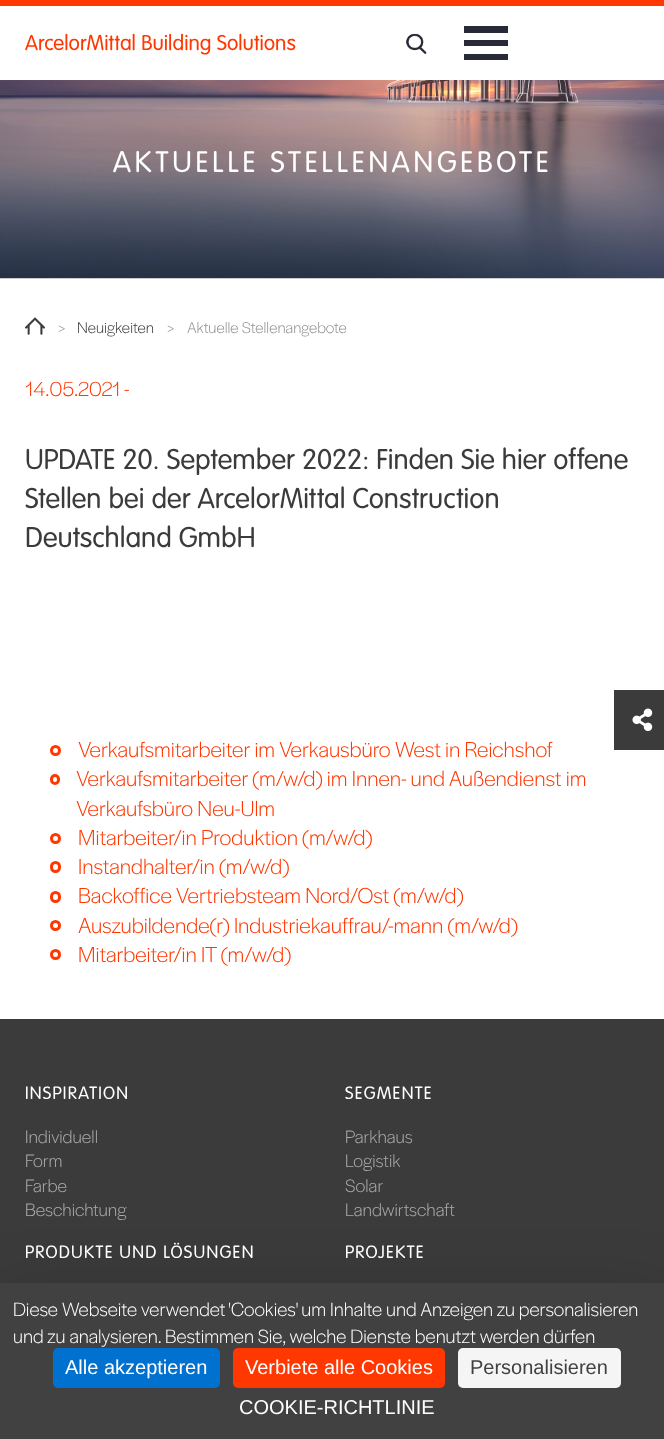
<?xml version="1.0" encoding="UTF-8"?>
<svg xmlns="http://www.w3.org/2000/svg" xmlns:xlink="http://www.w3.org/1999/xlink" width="664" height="1439">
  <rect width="100%" height="100%" fill="#ffffff" />
  <rect width="664" height="6" fill="#ff3700" />
  <image x="406" y="33" width="21" height="21" xlink:href="image1.png" />
  <rect x="464" y="26" width="44" height="7" fill="#282a38" />
  <rect x="464" y="40" width="44" height="6" fill="#282a38" />
  <rect x="464" y="54" width="44" height="6" fill="#282a38" />
  <image x="0" y="80" width="664" height="199" xlink:href="image2.png" />
  <image x="25" y="317" width="20" height="18" xlink:href="image3.png" />
  <circle cx="55.5" cy="750.5" r="4" fill="none" stroke="#ff3700" stroke-width="3" />
  <rect x="51.5" y="775.5" width="7" height="8" rx="3.5" fill="none" stroke="#ff3700" stroke-width="3" />
  <circle cx="55.5" cy="838.5" r="4" fill="none" stroke="#ff3700" stroke-width="3" />
  <rect x="51.5" y="862.5" width="8" height="9" rx="4" fill="none" stroke="#ff3700" stroke-width="3" />
  <rect x="51.5" y="892.5" width="8" height="9" rx="4" fill="none" stroke="#ff3700" stroke-width="3" />
  <circle cx="55.5" cy="925.5" r="4" fill="none" stroke="#ff3700" stroke-width="3" />
  <circle cx="55.5" cy="954.5" r="4" fill="none" stroke="#ff3700" stroke-width="3" />
  <rect x="614" y="690" width="50" height="60" fill="#3b3b3b" />
  <image x="632" y="708" width="21" height="24" xlink:href="image4.png" />
  <rect y="1019" width="664" height="264" fill="#3b3b3b" />
  <rect y="1308" width="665" height="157" fill="#000000" fill-opacity="0.25" filter="blur(37.5px)" />
  <rect y="1283" width="664" height="156" fill="#414141" />
  <rect x="53" y="1348" width="167" height="40" rx="5" fill="#0071ce" />
  <rect x="233" y="1348" width="212" height="40" rx="5" fill="#ff3700" />
  <rect x="458" y="1348" width="163" height="40" rx="5" fill="#f5f5f5" />
  <text x="25" y="50" style="font-family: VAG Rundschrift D; font-size: 22.5px; font-weight: 300; fill: #ff3700">ArcelorMittal Building Solutions</text>
  <text x="113" y="172" style="font-family: VAG Rundschrift D; font-size: 31.25px; font-weight: 300; letter-spacing: 3.75px; fill: #ffffff">AKTUELLE STELLENANGEBOTE</text>
  <text x="58" y="333" style="font-family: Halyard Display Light; font-size: 16.25px; font-weight: 300; fill: #919191">&gt;</text>
  <text x="77" y="333" style="font-family: Halyard Display Light; font-size: 16.25px; font-weight: 300; fill: #3b3b3b">Neuigkeiten</text>
  <text x="167" y="333" style="font-family: Halyard Display Light; font-size: 16.25px; font-weight: 300; fill: #919191">&gt;</text>
  <text x="187" y="333" style="font-family: Halyard Display Light; font-size: 16.25px; font-weight: 300; fill: #919191">Aktuelle Stellenangebote</text>
  <text x="25" y="396" style="font-family: Halyard Display Light; font-size: 21.25px; font-weight: 300; fill: #ff3700">14.05.2021 -</text>
  <text x="25" y="469" style="font-family: VAG Rundschrift D; font-size: 30px; font-weight: 300; fill: #3b3b3b">UPDATE 20. September 2022: Finden Sie hier offene</text>
  <text x="25" y="508" style="font-family: VAG Rundschrift D; font-size: 30px; font-weight: 300; fill: #3b3b3b">Stellen bei der ArcelorMittal Construction</text>
  <text x="25" y="547" style="font-family: VAG Rundschrift D; font-size: 30px; font-weight: 300; fill: #3b3b3b">Deutschland GmbH</text>
  <text x="78" y="757" style="font-family: Halyard Display Light; font-size: 22.5px; font-weight: 300; fill: #ff3700">Verkaufsmitarbeiter im Verkausbüro West in Reichshof</text>
  <text x="76" y="786" style="font-family: Halyard Display Light; font-size: 22.5px; font-weight: 300; fill: #ff3700">Verkaufsmitarbeiter (m/w/d) im Innen- und Außendienst im</text>
  <text x="76" y="816" style="font-family: Halyard Display Light; font-size: 22.5px; font-weight: 300; fill: #ff3700">Verkaufsbüro Neu-Ulm</text>
  <text x="78" y="845" style="font-family: Halyard Display Light; font-size: 22.5px; font-weight: 300; fill: #ff3700">Mitarbeiter/in Produktion (m/w/d)</text>
  <text x="78" y="874" style="font-family: Halyard Display Light; font-size: 22.5px; font-weight: 300; fill: #ff3700">Instandhalter/in (m/w/d)</text>
  <text x="78" y="903" style="font-family: Halyard Display Light; font-size: 22.5px; font-weight: 300; fill: #ff3700">Backoffice Vertriebsteam Nord/Ost (m/w/d)</text>
  <text x="78" y="933" style="font-family: Halyard Display Light; font-size: 22.5px; font-weight: 300; fill: #ff3700">Auszubildende(r) Industriekauffrau/-mann (m/w/d)</text>
  <text x="78" y="962" style="font-family: Halyard Display Light; font-size: 22.5px; font-weight: 300; fill: #ff3700">Mitarbeiter/in IT (m/w/d)</text>
  <text x="25" y="1099" style="font-family: VAG Rundschrift D; font-size: 18.75px; font-weight: 300; letter-spacing: 1.25px; fill: #ffffff">INSPIRATION</text>
  <text x="25" y="1143" style="font-family: Halyard Display Light; font-size: 18.75px; font-weight: 300; fill: #ababab">Individuell</text>
  <text x="25" y="1167" style="font-family: Halyard Display Light; font-size: 18.75px; font-weight: 300; fill: #ababab">Form</text>
  <text x="25" y="1192" style="font-family: Halyard Display Light; font-size: 18.75px; font-weight: 300; fill: #ababab">Farbe</text>
  <text x="25" y="1216" style="font-family: Halyard Display Light; font-size: 18.75px; font-weight: 300; fill: #ababab">Beschichtung</text>
  <text x="345" y="1099" style="font-family: VAG Rundschrift D; font-size: 18.75px; font-weight: 300; letter-spacing: 1.25px; fill: #ffffff">SEGMENTE</text>
  <text x="345" y="1143" style="font-family: Halyard Display Light; font-size: 18.75px; font-weight: 300; fill: #ababab">Parkhaus</text>
  <text x="345" y="1167" style="font-family: Halyard Display Light; font-size: 18.75px; font-weight: 300; fill: #ababab">Logistik</text>
  <text x="345" y="1192" style="font-family: Halyard Display Light; font-size: 18.75px; font-weight: 300; fill: #ababab">Solar</text>
  <text x="345" y="1216" style="font-family: Halyard Display Light; font-size: 18.75px; font-weight: 300; fill: #ababab">Landwirtschaft</text>
  <text x="25" y="1258" style="font-family: VAG Rundschrift D; font-size: 18.75px; font-weight: 300; letter-spacing: 1.25px; fill: #ffffff">PRODUKTE UND LÖSUNGEN</text>
  <text x="345" y="1258" style="font-family: VAG Rundschrift D; font-size: 18.75px; font-weight: 300; letter-spacing: 1.25px; fill: #ffffff">PROJEKTE</text>
  <text x="13" y="1316" style="font-family: Halyard Display Light; font-size: 20px; font-weight: 300; fill: #ffffff">Diese Webseite verwendet 'Cookies' um Inhalte und Anzeigen zu personalisieren</text>
  <text x="13" y="1343" style="font-family: Halyard Display Light; font-size: 20px; font-weight: 300; fill: #ffffff">und zu analysieren. Bestimmen Sie, welche Dienste benutzt werden dürfen</text>
  <text x="65" y="1374" style="font-family: Liberation Sans; font-size: 20px; fill: #ffffff">Alle akzeptieren</text>
  <text x="245" y="1374" style="font-family: Liberation Sans; font-size: 20px; fill: #ffffff">Verbiete alle Cookies</text>
  <text x="470" y="1374" style="font-family: Liberation Sans; font-size: 20px; fill: #414141">Personalisieren</text>
  <text x="239" y="1414" style="font-family: Liberation Sans; font-size: 20px; fill: #ffffff">COOKIE-RICHTLINIE</text>
</svg>
